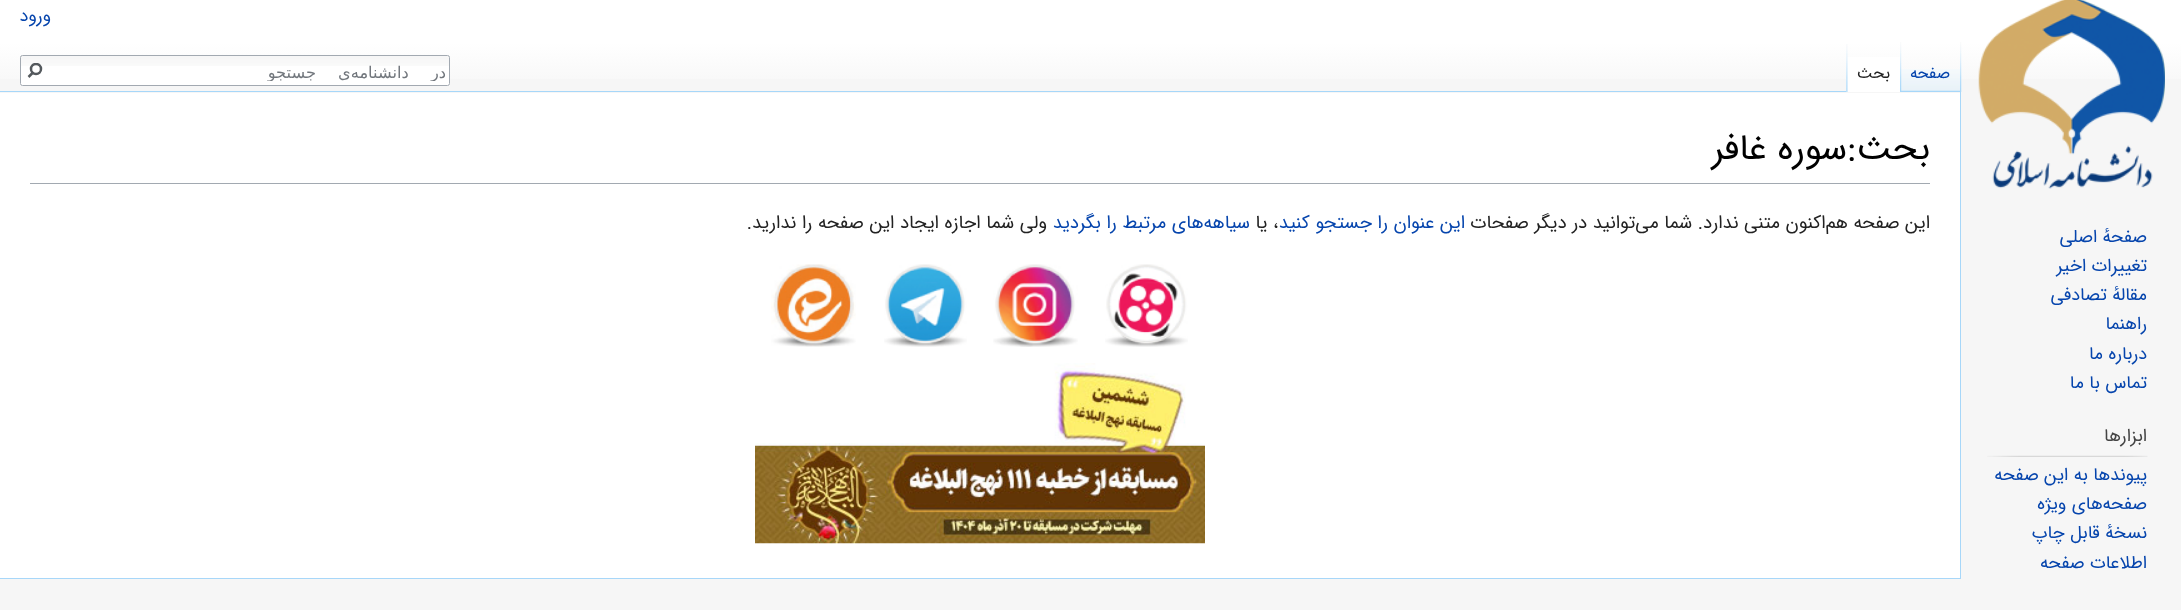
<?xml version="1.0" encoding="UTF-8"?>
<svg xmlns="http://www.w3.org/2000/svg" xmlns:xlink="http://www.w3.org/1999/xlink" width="2181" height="610">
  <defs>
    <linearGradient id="g1" gradientUnits="userSpaceOnUse" x1="1091" y1="-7.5" x2="1091" y2="93"><stop offset="0.5" stop-color="#ffffff" /><stop offset="1" stop-color="#f6f6f6" /></linearGradient>
    <clipPath id="clip1"><rect x="28" y="63" width="15" height="16" /></clipPath>
    <clipPath id="clip2"><rect x="65" y="63" width="381" height="18" /></clipPath>
  </defs>
  <rect width="100%" height="100%" fill="#f6f6f6" />
  <rect width="2181" height="79" fill="url(#g1)" />
  <rect y="91" width="1961" height="1" fill="#a7d7f9" />
  <rect x="1960" y="91" width="1" height="488" fill="#a7d7f9" />
  <image x="1960" y="42" width="2" height="50" xlink:href="image1.png" />
  <image x="1901" y="69" width="59" height="22" xlink:href="image2.png" />
  <image x="1900" y="42" width="2" height="49" xlink:href="image3.png" />
  <rect x="1846" y="57" width="54" height="35" fill="#ffffff" />
  <image x="1846" y="44" width="2" height="48" xlink:href="image4.png" />
  <rect x="20" y="55" width="430" height="31" rx="2.5" fill="#ffffff" />
  <image x="20" y="56" width="430" height="10" xlink:href="image5.png" />
  <rect x="20.5" y="55.5" width="429" height="30" rx="2" fill="none" stroke="#a2a9b1" />
  <path d="M 28.5 77 l 5 -5" fill="none" stroke="#54595d" stroke-width="2.5" />
  <g clip-path="url(#clip1)">
    <circle cx="36" cy="69" r="5" fill="none" stroke="#54595d" stroke-width="2.5" />
  </g>
  <image x="1978" y="0" width="187" height="189" xlink:href="image6.png" />
  <image x="1987" y="455" width="161" height="2" xlink:href="image7.png" />
  <rect y="93" width="1960" height="485" fill="#ffffff" />
  <rect y="578" width="1961" height="1" fill="#a7d7f9" />
  <rect x="30" y="183" width="1900" height="1" fill="#a2a9b1" />
  <image x="1105" y="264" width="83" height="83" xlink:href="image8.png" />
  <image x="993" y="264" width="85" height="83" xlink:href="image9.png" />
  <image x="884" y="264" width="83" height="83" xlink:href="image10.png" />
  <image x="771" y="264" width="85" height="83" xlink:href="image11.png" />
  <image x="755" y="363" width="450" height="181" xlink:href="image12.png" />
  <text x="51" y="21" style="font-family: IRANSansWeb; font-size: 18px; direction: rtl; fill: #0645ad">ورود</text>
  <text x="1950" y="78" style="font-family: IRANSansWeb; font-size: 16.25px; direction: rtl; fill: #0645ad">صفحه</text>
  <text x="1890" y="78" style="font-family: IRANSansWeb; font-size: 16.25px; direction: rtl; fill: #222222">بحث</text>
  <g clip-path="url(#clip2)">
    <text x="446" y="78" word-spacing="17" style="font-family: DejaVu Sans; font-size: 16.25px; direction: rtl; fill: #72777d">در دانشنامه‌ی</text>
    <text x="316" y="78" style="font-family: DejaVu Sans; font-size: 16.25px; direction: rtl; fill: #72777d">جستجو</text>
  </g>
  <text x="2147" y="242" style="font-family: IRANSansWeb; font-size: 18px; direction: rtl; fill: #0645ad">صفحهٔ اصلی</text>
  <text x="2147" y="271" style="font-family: IRANSansWeb; font-size: 18px; direction: rtl; fill: #0645ad">تغییرات اخیر</text>
  <text x="2147" y="300" style="font-family: IRANSansWeb; font-size: 18px; direction: rtl; fill: #0645ad">مقالهٔ تصادفی</text>
  <text x="2147" y="329" style="font-family: IRANSansWeb; font-size: 18px; direction: rtl; fill: #0645ad">راهنما</text>
  <text x="2147" y="359" style="font-family: IRANSansWeb; font-size: 18px; direction: rtl; fill: #0645ad">درباره ما</text>
  <text x="2147" y="388" style="font-family: IRANSansWeb; font-size: 18px; direction: rtl; fill: #0645ad">تماس با ما</text>
  <text x="2147" y="441" style="font-family: IRANSansWeb; font-size: 18px; direction: rtl; fill: #444444">ابزارها</text>
  <text x="2147" y="480" style="font-family: IRANSansWeb; font-size: 18px; direction: rtl; fill: #0645ad">پیوندها به این صفحه</text>
  <text x="2147" y="509" style="font-family: IRANSansWeb; font-size: 18px; direction: rtl; fill: #0645ad">صفحه‌های ویژه</text>
  <text x="2147" y="538" style="font-family: IRANSansWeb; font-size: 18px; direction: rtl; fill: #0645ad">نسخهٔ قابل چاپ</text>
  <text x="2147" y="568" style="font-family: IRANSansWeb; font-size: 18px; direction: rtl; fill: #0645ad">اطلاعات صفحه</text>
  <text x="1930" y="159" style="font-family: IRANSansWeb; font-size: 36px; direction: rtl; fill: #000000">بحث:سوره غافر</text>
  <text x="1930" y="228" style="font-family: IRANSansWeb; font-size: 18.6px; direction: rtl; fill: #222222">این صفحه هم‌اکنون متنی ندارد. شما می‌توانید در دیگر صفحات</text>
  <text x="1465" y="228" style="font-family: IRANSansWeb; font-size: 18.6px; direction: rtl; fill: #0645ad">این عنوان را جستجو کنید</text>
  <text x="1278" y="228" style="font-family: IRANSansWeb; font-size: 18.6px; direction: rtl; fill: #222222">، یا</text>
  <text x="1250" y="228" style="font-family: IRANSansWeb; font-size: 18.6px; direction: rtl; fill: #0645ad">سیاهه‌های مرتبط را بگردید</text>
  <text x="1047" y="228" style="font-family: IRANSansWeb; font-size: 18.6px; direction: rtl; fill: #222222">ولی شما اجازه ایجاد این صفحه را ندارید.</text>
</svg>
